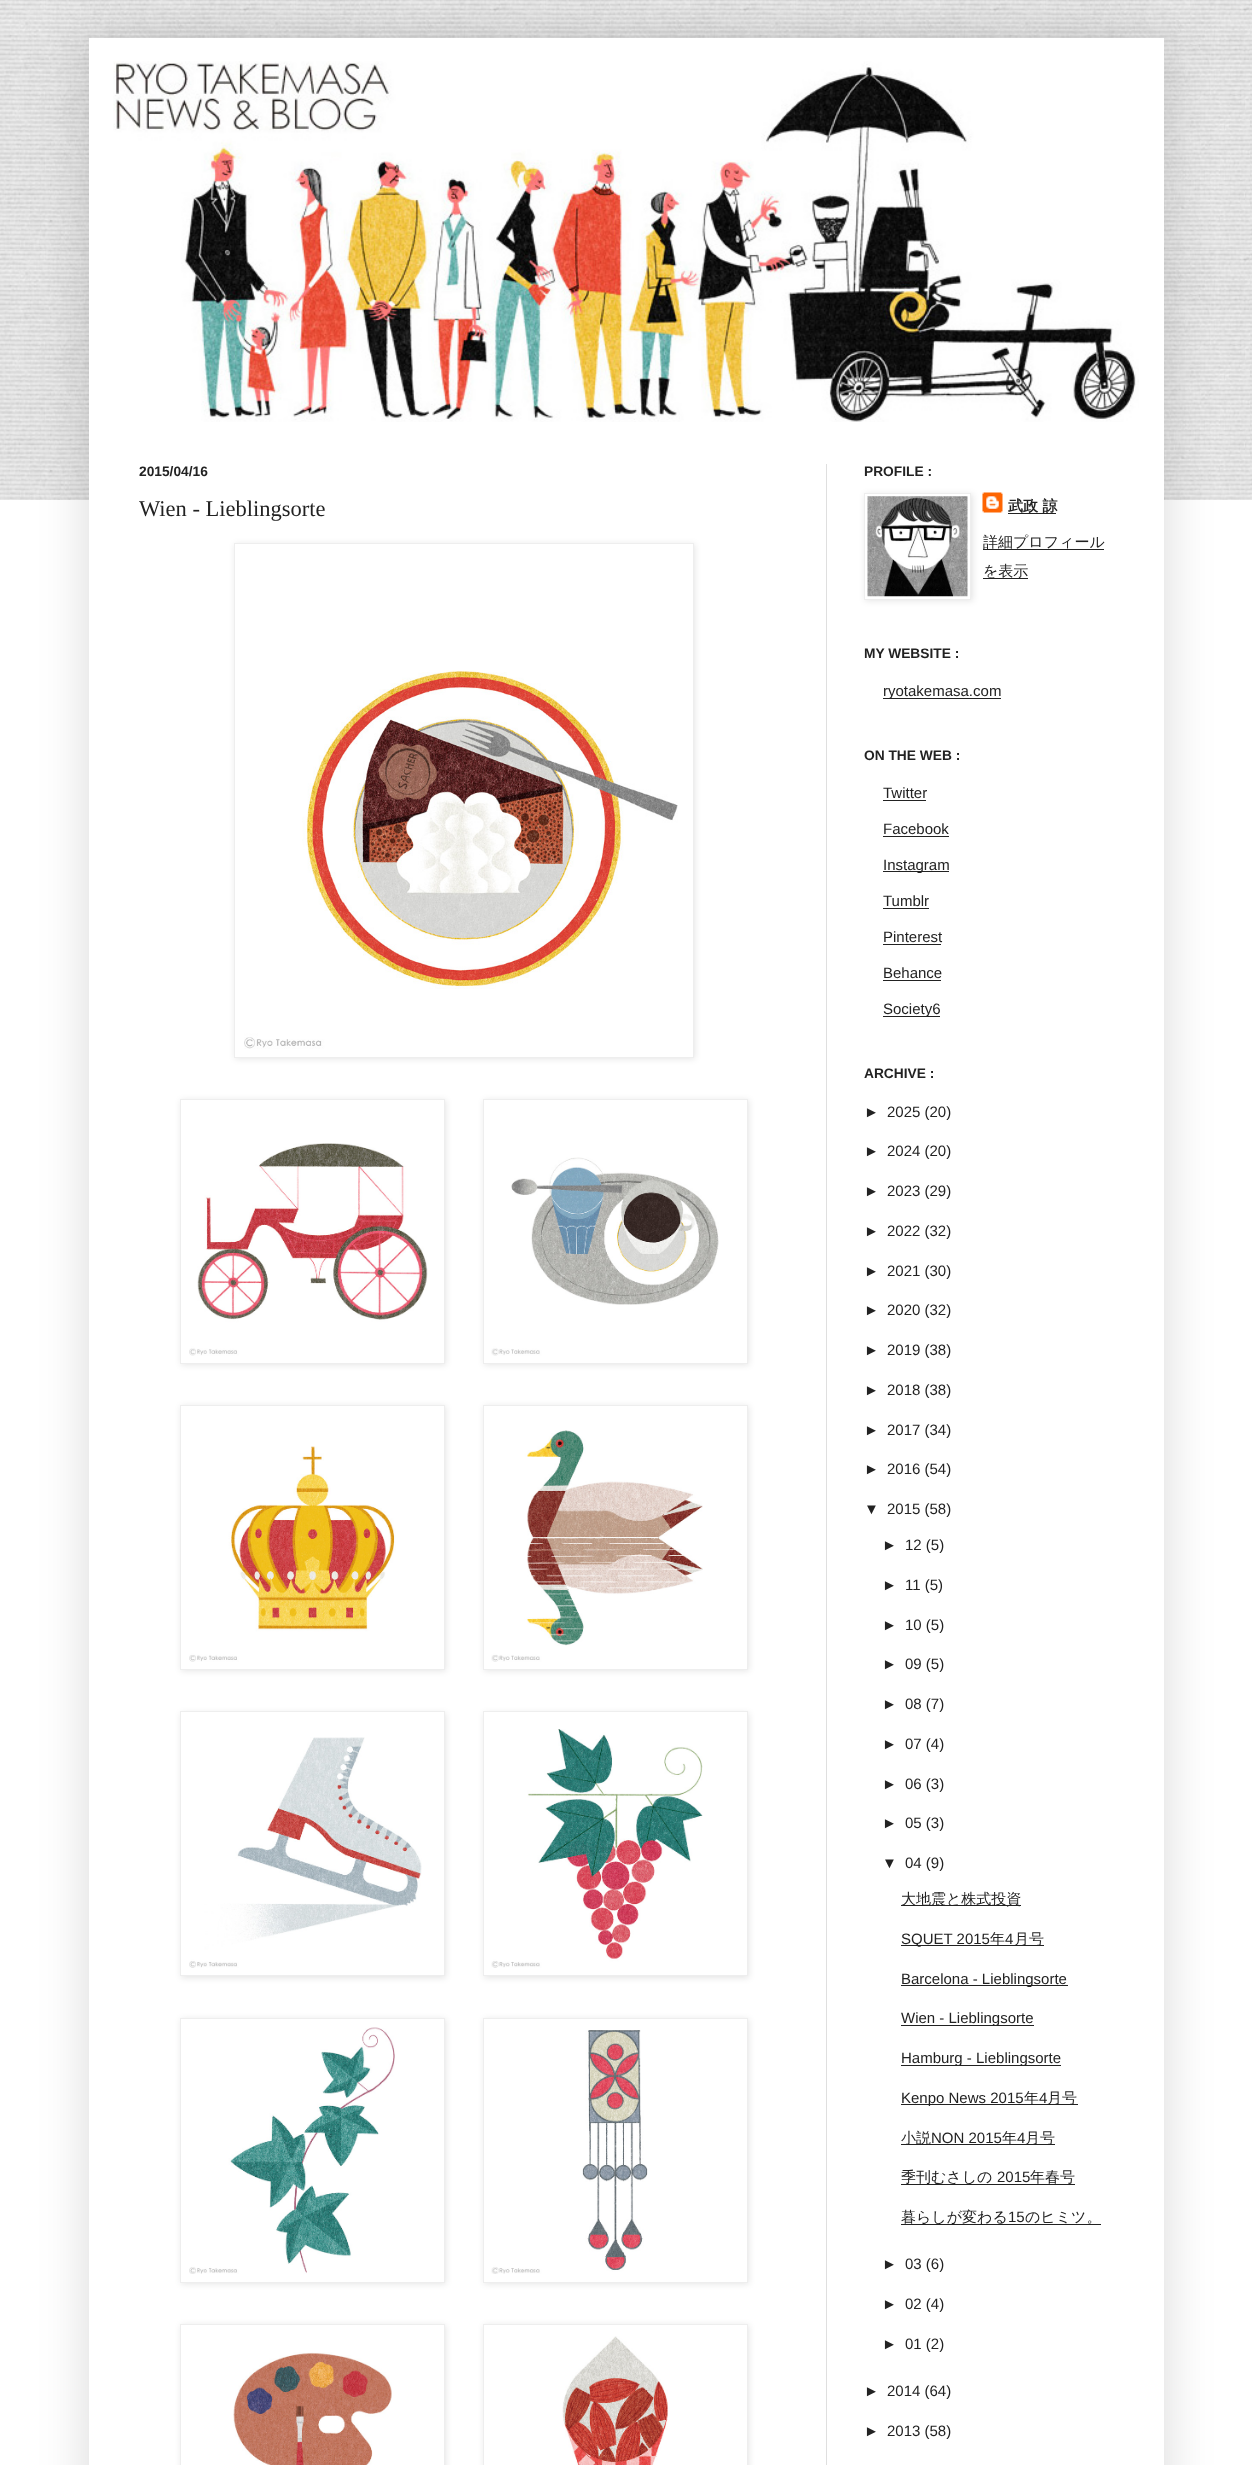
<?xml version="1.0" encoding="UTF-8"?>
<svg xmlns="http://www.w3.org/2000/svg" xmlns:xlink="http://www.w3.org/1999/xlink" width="1252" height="2465">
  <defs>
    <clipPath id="clip1"><path d="M 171 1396 h 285 v 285 h -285 z m 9 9 h 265 v 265 h -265 z" clip-rule="evenodd" /></clipPath>
    <clipPath id="clip2"><path d="M 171 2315 h 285 v 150 h -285 z m 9 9 h 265 v 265 h -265 z" clip-rule="evenodd" /></clipPath>
    <clipPath id="clip3"><path d="M 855 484 h 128 v 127 h -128 z m 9 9 h 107 v 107 h -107 z" clip-rule="evenodd" /></clipPath>
  </defs>
  <rect width="100%" height="100%" fill="#ffffff" />
  <image x="0" y="0" width="1252" height="500" xlink:href="image1.png" />
  <rect x="89" y="38" width="1075" height="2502" fill="#000000" fill-opacity="0.15" filter="blur(25px)" />
  <rect x="89" y="38" width="1075" height="2427" fill="#ffffff" />
  <image x="113" y="61" width="1026" height="361" xlink:href="image2.png" />
  <rect x="826" y="464" width="1" height="2001" fill="#dfdfdf" />
  <rect x="235" y="544" width="460" height="515" fill="#000000" fill-opacity="0.1" filter="blur(3px)" />
  <rect x="234.5" y="543.5" width="459" height="514" fill="#ffffff" stroke="#eeeeee" />
  <image x="244" y="670" width="434" height="379" xlink:href="image3.png" />
  <rect x="181" y="1100" width="265" height="265" fill="#000000" fill-opacity="0.1" filter="blur(3px)" />
  <rect x="484" y="1100" width="265" height="265" fill="#000000" fill-opacity="0.1" filter="blur(3px)" />
  <rect x="180.5" y="1099.5" width="264" height="264" fill="#ffffff" stroke="#eeeeee" />
  <rect x="483.5" y="1099.5" width="264" height="264" fill="#ffffff" stroke="#eeeeee" />
  <image x="189" y="1143" width="239" height="213" xlink:href="image4.png" />
  <image x="491" y="1157" width="228" height="199" xlink:href="image5.png" />
  <g clip-path="url(#clip1)">
    <rect x="181" y="1406" width="265" height="265" fill="#000000" fill-opacity="0.1" filter="blur(3px)" />
  </g>
  <rect x="484" y="1406" width="265" height="265" fill="#000000" fill-opacity="0.1" filter="blur(3px)" />
  <rect x="180.5" y="1405.5" width="264" height="264" fill="none" stroke="#eeeeee" />
  <rect x="483.5" y="1405.5" width="264" height="264" fill="#ffffff" stroke="#eeeeee" />
  <image x="189" y="1446" width="207" height="216" xlink:href="image6.png" />
  <image x="491" y="1430" width="212" height="232" xlink:href="image7.png" />
  <rect x="181" y="1713" width="265" height="265" fill="#000000" fill-opacity="0.1" filter="blur(3px)" />
  <rect x="484" y="1713" width="265" height="265" fill="#000000" fill-opacity="0.1" filter="blur(3px)" />
  <rect x="180.5" y="1711.5" width="264" height="264" fill="#ffffff" stroke="#eeeeee" />
  <rect x="483.5" y="1711.5" width="264" height="264" fill="#ffffff" stroke="#eeeeee" />
  <image x="189" y="1737" width="233" height="231" xlink:href="image8.png" />
  <image x="491" y="1729" width="212" height="239" xlink:href="image9.png" />
  <rect x="181" y="2019" width="265" height="265" fill="#000000" fill-opacity="0.1" filter="blur(3px)" />
  <rect x="484" y="2019" width="265" height="265" fill="#000000" fill-opacity="0.1" filter="blur(3px)" />
  <rect x="180.5" y="2018.5" width="264" height="264" fill="#ffffff" stroke="#eeeeee" />
  <rect x="483.5" y="2018.5" width="264" height="264" fill="#ffffff" stroke="#eeeeee" />
  <image x="189" y="2027" width="206" height="247" xlink:href="image10.png" />
  <image x="491" y="2030" width="157" height="244" xlink:href="image11.png" />
  <g clip-path="url(#clip2)">
    <rect x="181" y="2325" width="265" height="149" fill="#000000" fill-opacity="0.1" filter="blur(3px)" />
  </g>
  <rect x="484" y="2325" width="265" height="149" fill="#000000" fill-opacity="0.1" filter="blur(3px)" />
  <rect x="180.5" y="2324.5" width="264" height="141" fill="none" stroke="#eeeeee" />
  <rect x="483.5" y="2324.5" width="264" height="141" fill="#ffffff" stroke="#eeeeee" />
  <image x="233" y="2352" width="159" height="113" xlink:href="image12.png" />
  <image x="562" y="2336" width="106" height="129" xlink:href="image13.png" />
  <image x="982" y="492" width="21" height="21" xlink:href="image15.png" />
  <g clip-path="url(#clip3)">
    <rect x="865" y="494" width="108" height="107" fill="#000000" fill-opacity="0.1" filter="blur(3px)" />
  </g>
  <rect x="864.5" y="493.5" width="106" height="106" fill="none" stroke="#eeeeee" />
  <image x="867" y="496" width="101" height="101" xlink:href="image14.png" />
  <rect x="1008" y="513" width="48" height="1" fill="#222222" />
  <rect x="983" y="549" width="121" height="1" fill="#222222" />
  <rect x="983" y="578" width="45" height="1" fill="#222222" />
  <rect x="883" y="698" width="118" height="1" fill="#222222" />
  <rect x="883" y="800" width="43" height="1" fill="#222222" />
  <rect x="883" y="836" width="66" height="1" fill="#222222" />
  <rect x="883" y="871" width="66" height="1" fill="#222222" />
  <rect x="883" y="908" width="46" height="1" fill="#222222" />
  <rect x="883" y="944" width="58" height="1" fill="#222222" />
  <rect x="883" y="980" width="58" height="1" fill="#222222" />
  <rect x="883" y="1016" width="57" height="1" fill="#222222" />
  <rect x="901" y="1905" width="120" height="1" fill="#222222" />
  <rect x="901" y="1945" width="143" height="1" fill="#222222" />
  <rect x="901" y="1985" width="167" height="1" fill="#222222" />
  <rect x="901" y="2025" width="133" height="1" fill="#222222" />
  <rect x="901" y="2065" width="160" height="1" fill="#222222" />
  <rect x="901" y="2104" width="177" height="1" fill="#222222" />
  <rect x="901" y="2144" width="154" height="1" fill="#222222" />
  <rect x="901" y="2184" width="174" height="1" fill="#222222" />
  <rect x="901" y="2224" width="200" height="1" fill="#222222" />
  <text x="139" y="476" style="font-family: Liberation Sans; font-size: 13.75px; font-weight: bold; fill: #222222">2015/04/16</text>
  <text x="139" y="516" style="font-family: Liberation Serif; font-size: 22.5px; fill: #222222">Wien - Lieblingsorte</text>
  <text x="864" y="476" style="font-family: Liberation Sans; font-size: 13.75px; font-weight: bold; fill: #222222">PROFILE :</text>
  <text x="1008" y="511" style="font-family: WenQuanYi Zen Hei; font-size: 15px; font-weight: bold; fill: #222222">武政 諒</text>
  <text x="983" y="547" style="font-family: WenQuanYi Zen Hei; font-size: 15px; font-weight: 500; fill: #222222">詳細プロフィール</text>
  <text x="983" y="576" style="font-family: WenQuanYi Zen Hei; font-size: 15px; font-weight: 500; fill: #222222">を表示</text>
  <text x="864" y="658" style="font-family: Liberation Sans; font-size: 13.75px; font-weight: bold; fill: #222222">MY WEBSITE :</text>
  <text x="883" y="696" style="font-family: Liberation Sans; font-size: 15px; fill: #222222">ryotakemasa.com</text>
  <text x="864" y="760" style="font-family: Liberation Sans; font-size: 13.75px; font-weight: bold; fill: #222222">ON THE WEB :</text>
  <text x="883" y="798" style="font-family: Liberation Sans; font-size: 15px; fill: #222222">Twitter</text>
  <text x="883" y="834" style="font-family: Liberation Sans; font-size: 15px; fill: #222222">Facebook</text>
  <text x="883" y="870" style="font-family: Liberation Sans; font-size: 15px; fill: #222222">Instagram</text>
  <text x="883" y="906" style="font-family: Liberation Sans; font-size: 15px; fill: #222222">Tumblr</text>
  <text x="883" y="942" style="font-family: Liberation Sans; font-size: 15px; fill: #222222">Pinterest</text>
  <text x="883" y="978" style="font-family: Liberation Sans; font-size: 15px; fill: #222222">Behance</text>
  <text x="883" y="1014" style="font-family: Liberation Sans; font-size: 15px; fill: #222222">Society6</text>
  <text x="864" y="1078" style="font-family: Liberation Sans; font-size: 13.75px; font-weight: bold; fill: #222222">ARCHIVE :</text>
  <text x="864" y="1117" style="font-family: Liberation Sans; font-size: 15px; fill: #222222">►</text>
  <text x="887" y="1117" style="font-family: Liberation Sans; font-size: 15px; fill: #222222">2025 (20)</text>
  <text x="864" y="1156" style="font-family: Liberation Sans; font-size: 15px; fill: #222222">►</text>
  <text x="887" y="1156" style="font-family: Liberation Sans; font-size: 15px; fill: #222222">2024 (20)</text>
  <text x="864" y="1196" style="font-family: Liberation Sans; font-size: 15px; fill: #222222">►</text>
  <text x="887" y="1196" style="font-family: Liberation Sans; font-size: 15px; fill: #222222">2023 (29)</text>
  <text x="864" y="1236" style="font-family: Liberation Sans; font-size: 15px; fill: #222222">►</text>
  <text x="887" y="1236" style="font-family: Liberation Sans; font-size: 15px; fill: #222222">2022 (32)</text>
  <text x="864" y="1276" style="font-family: Liberation Sans; font-size: 15px; fill: #222222">►</text>
  <text x="887" y="1276" style="font-family: Liberation Sans; font-size: 15px; fill: #222222">2021 (30)</text>
  <text x="864" y="1315" style="font-family: Liberation Sans; font-size: 15px; fill: #222222">►</text>
  <text x="887" y="1315" style="font-family: Liberation Sans; font-size: 15px; fill: #222222">2020 (32)</text>
  <text x="864" y="1355" style="font-family: Liberation Sans; font-size: 15px; fill: #222222">►</text>
  <text x="887" y="1355" style="font-family: Liberation Sans; font-size: 15px; fill: #222222">2019 (38)</text>
  <text x="864" y="1395" style="font-family: Liberation Sans; font-size: 15px; fill: #222222">►</text>
  <text x="887" y="1395" style="font-family: Liberation Sans; font-size: 15px; fill: #222222">2018 (38)</text>
  <text x="864" y="1435" style="font-family: Liberation Sans; font-size: 15px; fill: #222222">►</text>
  <text x="887" y="1435" style="font-family: Liberation Sans; font-size: 15px; fill: #222222">2017 (34)</text>
  <text x="864" y="1474" style="font-family: Liberation Sans; font-size: 15px; fill: #222222">►</text>
  <text x="887" y="1474" style="font-family: Liberation Sans; font-size: 15px; fill: #222222">2016 (54)</text>
  <text x="864" y="1514" style="font-family: Liberation Sans; font-size: 15px; fill: #222222">▼</text>
  <text x="887" y="1514" style="font-family: Liberation Sans; font-size: 15px; fill: #222222">2015 (58)</text>
  <text x="882" y="1550" style="font-family: Liberation Sans; font-size: 15px; fill: #222222">►</text>
  <text x="905" y="1550" style="font-family: Liberation Sans; font-size: 15px; fill: #222222">12 (5)</text>
  <text x="882" y="1590" style="font-family: Liberation Sans; font-size: 15px; fill: #222222">►</text>
  <text x="905" y="1590" style="font-family: Liberation Sans; font-size: 15px; fill: #222222">11 (5)</text>
  <text x="882" y="1630" style="font-family: Liberation Sans; font-size: 15px; fill: #222222">►</text>
  <text x="905" y="1630" style="font-family: Liberation Sans; font-size: 15px; fill: #222222">10 (5)</text>
  <text x="882" y="1669" style="font-family: Liberation Sans; font-size: 15px; fill: #222222">►</text>
  <text x="905" y="1669" style="font-family: Liberation Sans; font-size: 15px; fill: #222222">09 (5)</text>
  <text x="882" y="1709" style="font-family: Liberation Sans; font-size: 15px; fill: #222222">►</text>
  <text x="905" y="1709" style="font-family: Liberation Sans; font-size: 15px; fill: #222222">08 (7)</text>
  <text x="882" y="1749" style="font-family: Liberation Sans; font-size: 15px; fill: #222222">►</text>
  <text x="905" y="1749" style="font-family: Liberation Sans; font-size: 15px; fill: #222222">07 (4)</text>
  <text x="882" y="1789" style="font-family: Liberation Sans; font-size: 15px; fill: #222222">►</text>
  <text x="905" y="1789" style="font-family: Liberation Sans; font-size: 15px; fill: #222222">06 (3)</text>
  <text x="882" y="1828" style="font-family: Liberation Sans; font-size: 15px; fill: #222222">►</text>
  <text x="905" y="1828" style="font-family: Liberation Sans; font-size: 15px; fill: #222222">05 (3)</text>
  <text x="882" y="1868" style="font-family: Liberation Sans; font-size: 15px; fill: #222222">▼</text>
  <text x="905" y="1868" style="font-family: Liberation Sans; font-size: 15px; fill: #222222">04 (9)</text>
  <text x="901" y="1904" style="font-family: WenQuanYi Zen Hei; font-size: 15px; font-weight: 500; fill: #222222">大地震と株式投資</text>
  <text x="901" y="1944" style="font-family: Liberation Sans; font-size: 15px; fill: #222222">SQUET 2015</text>
  <text x="990" y="1944" style="font-family: WenQuanYi Zen Hei; font-size: 15px; font-weight: 500; fill: #222222">年</text>
  <text x="1005" y="1944" style="font-family: Liberation Sans; font-size: 15px; fill: #222222">4</text>
  <text x="1014" y="1944" style="font-family: WenQuanYi Zen Hei; font-size: 15px; font-weight: 500; fill: #222222">月号</text>
  <text x="901" y="1984" style="font-family: Liberation Sans; font-size: 15px; fill: #222222">Barcelona - Lieblingsorte</text>
  <text x="901" y="2023" style="font-family: Liberation Sans; font-size: 15px; fill: #222222">Wien - Lieblingsorte</text>
  <text x="901" y="2063" style="font-family: Liberation Sans; font-size: 15px; fill: #222222">Hamburg - Lieblingsorte</text>
  <text x="901" y="2103" style="font-family: Liberation Sans; font-size: 15px; fill: #222222">Kenpo News 2015</text>
  <text x="1024" y="2103" style="font-family: WenQuanYi Zen Hei; font-size: 15px; font-weight: 500; fill: #222222">年</text>
  <text x="1039" y="2103" style="font-family: Liberation Sans; font-size: 15px; fill: #222222">4</text>
  <text x="1047" y="2103" style="font-family: WenQuanYi Zen Hei; font-size: 15px; font-weight: 500; fill: #222222">月号</text>
  <text x="901" y="2143" style="font-family: WenQuanYi Zen Hei; font-size: 15px; font-weight: 500; fill: #222222">小説</text>
  <text x="931" y="2143" style="font-family: Liberation Sans; font-size: 15px; fill: #222222">NON 2015</text>
  <text x="1002" y="2143" style="font-family: WenQuanYi Zen Hei; font-size: 15px; font-weight: 500; fill: #222222">年</text>
  <text x="1017" y="2143" style="font-family: Liberation Sans; font-size: 15px; fill: #222222">4</text>
  <text x="1025" y="2143" style="font-family: WenQuanYi Zen Hei; font-size: 15px; font-weight: 500; fill: #222222">月号</text>
  <text x="901" y="2182" style="font-family: WenQuanYi Zen Hei; font-size: 15px; font-weight: 500; fill: #222222">季刊むさしの</text>
  <text x="997" y="2182" style="font-family: Liberation Sans; font-size: 15px; fill: #222222">2015</text>
  <text x="1030" y="2182" style="font-family: WenQuanYi Zen Hei; font-size: 15px; font-weight: 500; fill: #222222">年春号</text>
  <text x="901" y="2222" style="font-family: WenQuanYi Zen Hei; font-size: 15px; font-weight: 500; fill: #222222">暮らしが変わる</text>
  <text x="1008" y="2222" style="font-family: Liberation Sans; font-size: 15px; fill: #222222">15</text>
  <text x="1025" y="2222" style="font-family: WenQuanYi Zen Hei; font-size: 15px; font-weight: 500; fill: #222222">のヒミツ。</text>
  <text x="882" y="2269" style="font-family: Liberation Sans; font-size: 15px; fill: #222222">►</text>
  <text x="905" y="2269" style="font-family: Liberation Sans; font-size: 15px; fill: #222222">03 (6)</text>
  <text x="882" y="2309" style="font-family: Liberation Sans; font-size: 15px; fill: #222222">►</text>
  <text x="905" y="2309" style="font-family: Liberation Sans; font-size: 15px; fill: #222222">02 (4)</text>
  <text x="882" y="2349" style="font-family: Liberation Sans; font-size: 15px; fill: #222222">►</text>
  <text x="905" y="2349" style="font-family: Liberation Sans; font-size: 15px; fill: #222222">01 (2)</text>
  <text x="864" y="2396" style="font-family: Liberation Sans; font-size: 15px; fill: #222222">►</text>
  <text x="887" y="2396" style="font-family: Liberation Sans; font-size: 15px; fill: #222222">2014 (64)</text>
  <text x="864" y="2436" style="font-family: Liberation Sans; font-size: 15px; fill: #222222">►</text>
  <text x="887" y="2436" style="font-family: Liberation Sans; font-size: 15px; fill: #222222">2013 (58)</text>
</svg>
